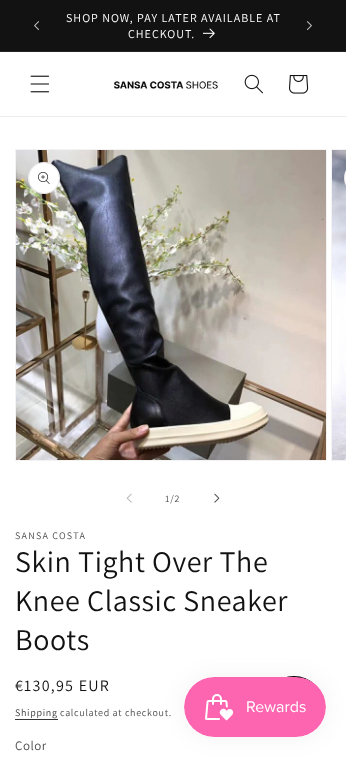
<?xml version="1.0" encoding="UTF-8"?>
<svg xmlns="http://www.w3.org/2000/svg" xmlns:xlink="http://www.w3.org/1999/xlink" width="346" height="757">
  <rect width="100%" height="100%" fill="#ffffff" />
  <rect width="346" height="51" fill="#121212" />
  <rect y="51" width="346" height="1" fill="#252525" />
  <image x="34" y="21" width="5" height="9" xlink:href="image1.png" />
  <image x="203" y="28" width="12" height="11" xlink:href="image2.png" />
  <image x="307" y="21" width="5" height="9" xlink:href="image3.png" />
  <rect y="116" width="346" height="1" fill="#ececec" />
  <image x="30" y="75" width="20" height="18" xlink:href="image4.png" />
  <image x="113" y="80" width="106" height="10" xlink:href="image5.png" />
  <image x="244" y="74" width="19" height="20" xlink:href="image6.png" />
  <image x="289" y="75" width="20" height="19" xlink:href="image7.png" />
  <rect x="15.5" y="149.5" width="311" height="311" fill="none" stroke="#f3f3f3" />
  <image x="16" y="150" width="310" height="310" xlink:href="image8.png" />
  <circle cx="44" cy="178" r="16" fill="#ffffff" />
  <circle cx="44" cy="178" r="15.5" fill="none" stroke="#121212" stroke-opacity="0.1" />
  <image x="38" y="172" width="12" height="12" xlink:href="image9.png" />
  <rect x="331.5" y="149.5" width="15" height="311" fill="none" stroke="#f3f3f3" />
  <image x="332" y="150" width="14" height="310" xlink:href="image10.png" />
  <path d="M 360 162 h -14 v 32 h 14 c -9 0 -16 -7 -16 -16 c 0 -9 7 -16 16 -16 z" fill="#ffffff" />
  <rect x="344.5" y="162.5" width="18" height="31" rx="15.5" fill="none" stroke="#121212" stroke-opacity="0.1" />
  <image x="126" y="493" width="6" height="10" xlink:href="image11.png" />
  <image x="214" y="493" width="6" height="10" xlink:href="image12.png" />
  <rect x="15" y="719" width="43" height="1" fill="#363636" />
  <circle cx="294" cy="706" r="30" fill="#000000" />
  <rect x="184" y="677" width="142" height="60" rx="30" fill="#000000" fill-opacity="0.05" filter="blur(12.5px)" />
  <image x="184" y="677" width="142" height="60" xlink:href="image13.png" />
  <text x="66" y="22" style="font-family: Assistant; font-size: 12px; letter-spacing: 1px; fill: #ffffff">SHOP NOW, PAY LATER AVAILABLE AT</text>
  <text x="128" y="38" style="font-family: Assistant; font-size: 12px; letter-spacing: 1px; fill: #ffffff">CHECKOUT.</text>
  <text x="165" y="502" style="font-family: Assistant; font-size: 10px; letter-spacing: 0.7px; fill: #4d4d4d">1/2</text>
  <text x="15" y="539" style="font-family: Assistant; font-size: 10px; letter-spacing: 1.25px; fill: #4d4d4d">SANSA COSTA</text>
  <text x="15" y="572" style="font-family: Assistant; font-size: 30px; letter-spacing: 0.6px; fill: #121212">Skin Tight Over The</text>
  <text x="15" y="611" style="font-family: Assistant; font-size: 30px; letter-spacing: 0.6px; fill: #121212">Knee Classic Sneaker</text>
  <text x="15" y="650" style="font-family: Assistant; font-size: 30px; letter-spacing: 0.6px; fill: #121212">Boots</text>
  <text x="15" y="691" style="font-family: Assistant; font-size: 16px; letter-spacing: 1.25px; fill: #121212">€130,95 EUR</text>
  <text x="15" y="716" style="font-family: Assistant; font-size: 10px; letter-spacing: 0.7px; fill: #363636">Shipping</text>
  <text x="60" y="716" style="font-family: Assistant; font-size: 10px; letter-spacing: 0.7px; fill: #4d4d4d">calculated at checkout.</text>
  <text x="15" y="750" style="font-family: Assistant; font-size: 13px; letter-spacing: 0.5px; fill: #4d4d4d">Color</text>
</svg>
